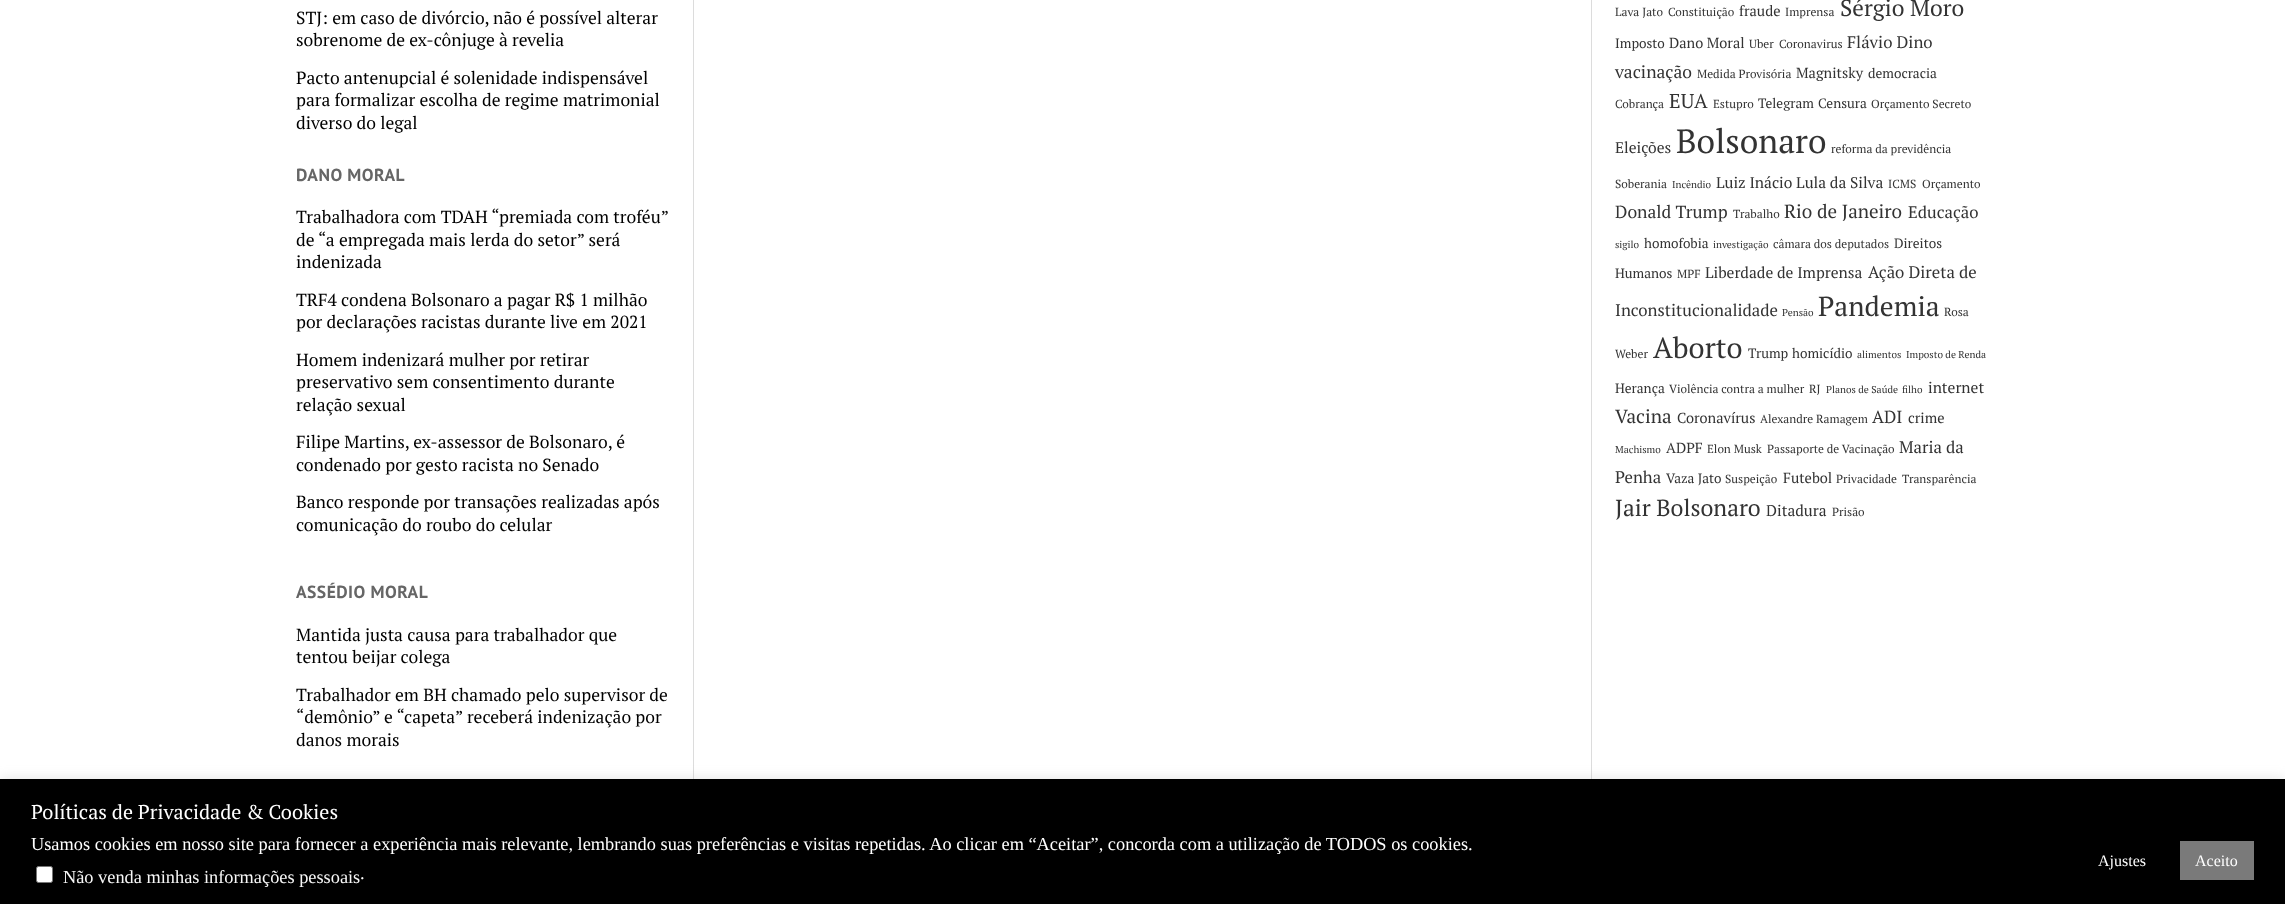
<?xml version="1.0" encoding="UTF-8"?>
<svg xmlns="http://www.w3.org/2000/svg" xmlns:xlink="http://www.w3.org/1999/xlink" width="2285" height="904">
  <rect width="100%" height="100%" fill="#ffffff" />
  <rect x="693" width="1" height="780" fill="#dcdcdc" />
  <rect x="1591" width="1" height="780" fill="#dcdcdc" />
  <rect y="778" width="2285" height="126" fill="#acabab" fill-opacity="0.3" filter="blur(6px)" />
  <rect y="779" width="2285" height="125" fill="#000000" />
  <rect x="36.5" y="866.5" width="16" height="16" rx="2" fill="#ffffff" stroke="#767676" />
  <rect x="2180" y="841" width="74" height="39" fill="#7a7a7a" />
  <text x="296" y="24" style="font-family: PT Serif; font-size: 17.5px; fill: #000000">STJ: em caso de divórcio, não é possível alterar</text>
  <text x="296" y="46" style="font-family: PT Serif; font-size: 17.5px; fill: #000000">sobrenome de ex-cônjuge à revelia</text>
  <text x="296" y="84" style="font-family: PT Serif; font-size: 17.5px; fill: #000000">Pacto antenupcial é solenidade indispensável</text>
  <text x="296" y="106" style="font-family: PT Serif; font-size: 17.5px; fill: #000000">para formalizar escolha de regime matrimonial</text>
  <text x="296" y="129" style="font-family: PT Serif; font-size: 17.5px; fill: #000000">diverso do legal</text>
  <text x="296" y="181" style="font-family: PT Sans; font-size: 17.5px; font-weight: bold; letter-spacing: 0.5px; fill: #666666">DANO MORAL</text>
  <text x="296" y="223" style="font-family: PT Serif; font-size: 17.5px; fill: #000000">Trabalhadora com TDAH “premiada com troféu”</text>
  <text x="296" y="246" style="font-family: PT Serif; font-size: 17.5px; fill: #000000">de “a empregada mais lerda do setor” será</text>
  <text x="296" y="268" style="font-family: PT Serif; font-size: 17.5px; fill: #000000">indenizada</text>
  <text x="296" y="306" style="font-family: PT Serif; font-size: 17.5px; fill: #000000">TRF4 condena Bolsonaro a pagar R$ 1 milhão</text>
  <text x="296" y="328" style="font-family: PT Serif; font-size: 17.5px; fill: #000000">por declarações racistas durante live em 2021</text>
  <text x="296" y="366" style="font-family: PT Serif; font-size: 17.5px; fill: #000000">Homem indenizará mulher por retirar</text>
  <text x="296" y="388" style="font-family: PT Serif; font-size: 17.5px; fill: #000000">preservativo sem consentimento durante</text>
  <text x="296" y="411" style="font-family: PT Serif; font-size: 17.5px; fill: #000000">relação sexual</text>
  <text x="296" y="448" style="font-family: PT Serif; font-size: 17.5px; fill: #000000">Filipe Martins, ex-assessor de Bolsonaro, é</text>
  <text x="296" y="471" style="font-family: PT Serif; font-size: 17.5px; fill: #000000">condenado por gesto racista no Senado</text>
  <text x="296" y="508" style="font-family: PT Serif; font-size: 17.5px; fill: #000000">Banco responde por transações realizadas após</text>
  <text x="296" y="531" style="font-family: PT Serif; font-size: 17.5px; fill: #000000">comunicação do roubo do celular</text>
  <text x="296" y="598" style="font-family: PT Sans; font-size: 17.5px; font-weight: bold; letter-spacing: 0.5px; fill: #666666">ASSÉDIO MORAL</text>
  <text x="296" y="641" style="font-family: PT Serif; font-size: 17.5px; fill: #000000">Mantida justa causa para trabalhador que</text>
  <text x="296" y="663" style="font-family: PT Serif; font-size: 17.5px; fill: #000000">tentou beijar colega</text>
  <text x="296" y="701" style="font-family: PT Serif; font-size: 17.5px; fill: #000000">Trabalhador em BH chamado pelo supervisor de</text>
  <text x="296" y="723" style="font-family: PT Serif; font-size: 17.5px; fill: #000000">“demônio” e “capeta” receberá indenização por</text>
  <text x="296" y="746" style="font-family: PT Serif; font-size: 17.5px; fill: #000000">danos morais</text>
  <text x="1615" y="16" style="font-family: PT Serif; font-size: 11.75px; fill: #333333">Lava Jato</text>
  <text x="1668" y="16" style="font-family: PT Serif; font-size: 11.75px; fill: #333333">Constituição</text>
  <text x="1739" y="16" style="font-family: PT Serif; font-size: 14.5px; fill: #333333">fraude</text>
  <text x="1785" y="16" style="font-family: PT Serif; font-size: 11.75px; fill: #333333">Imprensa</text>
  <text x="1840" y="16" style="font-family: PT Serif; font-size: 23px; fill: #333333">Sérgio Moro</text>
  <text x="1615" y="48" style="font-family: PT Serif; font-size: 13.5px; fill: #333333">Imposto</text>
  <text x="1669" y="48" style="font-family: PT Serif; font-size: 14.5px; fill: #333333">Dano Moral</text>
  <text x="1749" y="48" style="font-family: PT Serif; font-size: 11.75px; fill: #333333">Uber</text>
  <text x="1779" y="48" style="font-family: PT Serif; font-size: 11.75px; fill: #333333">Coronavirus</text>
  <text x="1847" y="48" style="font-family: PT Serif; font-size: 16.75px; fill: #333333">Flávio Dino</text>
  <text x="1615" y="78" style="font-family: PT Serif; font-size: 17.5px; fill: #333333">vacinação</text>
  <text x="1697" y="78" style="font-family: PT Serif; font-size: 11.75px; fill: #333333">Medida Provisória</text>
  <text x="1796" y="78" style="font-family: PT Serif; font-size: 14.5px; fill: #333333">Magnitsky</text>
  <text x="1868" y="78" style="font-family: PT Serif; font-size: 13.5px; fill: #333333">democracia</text>
  <text x="1615" y="108" style="font-family: PT Serif; font-size: 11.75px; fill: #333333">Cobrança</text>
  <text x="1669" y="108" style="font-family: PT Serif; font-size: 20px; fill: #333333">EUA</text>
  <text x="1713" y="108" style="font-family: PT Serif; font-size: 11.75px; fill: #333333">Estupro</text>
  <text x="1758" y="108" style="font-family: PT Serif; font-size: 13.5px; fill: #333333">Telegram</text>
  <text x="1818" y="108" style="font-family: PT Serif; font-size: 13.5px; fill: #333333">Censura</text>
  <text x="1871" y="108" style="font-family: PT Serif; font-size: 11.75px; fill: #333333">Orçamento Secreto</text>
  <text x="1615" y="153" style="font-family: PT Serif; font-size: 15.5px; fill: #333333">Eleições</text>
  <text x="1676" y="153" style="font-family: PT Serif; font-size: 33.5px; fill: #333333">Bolsonaro</text>
  <text x="1831" y="153" style="font-family: PT Serif; font-size: 11.75px; fill: #333333">reforma da previdência</text>
  <text x="1615" y="188" style="font-family: PT Serif; font-size: 11.75px; fill: #333333">Soberania</text>
  <text x="1672" y="188" style="font-family: PT Serif; font-size: 10px; fill: #333333">Incêndio</text>
  <text x="1716" y="188" style="font-family: PT Serif; font-size: 15.5px; fill: #333333">Luiz Inácio Lula da Silva</text>
  <text x="1888" y="188" style="font-family: PT Serif; font-size: 11.75px; fill: #333333">ICMS</text>
  <text x="1922" y="188" style="font-family: PT Serif; font-size: 11.75px; fill: #333333">Orçamento</text>
  <text x="1615" y="218" style="font-family: PT Serif; font-size: 17.5px; fill: #333333">Donald Trump</text>
  <text x="1733" y="218" style="font-family: PT Serif; font-size: 11.75px; fill: #333333">Trabalho</text>
  <text x="1784" y="218" style="font-family: PT Serif; font-size: 19px; fill: #333333">Rio de Janeiro</text>
  <text x="1908" y="218" style="font-family: PT Serif; font-size: 16.75px; fill: #333333">Educação</text>
  <text x="1615" y="248" style="font-family: PT Serif; font-size: 10px; fill: #333333">sigilo</text>
  <text x="1644" y="248" style="font-family: PT Serif; font-size: 13.5px; fill: #333333">homofobia</text>
  <text x="1713" y="248" style="font-family: PT Serif; font-size: 10px; fill: #333333">investigação</text>
  <text x="1773" y="248" style="font-family: PT Serif; font-size: 11.75px; fill: #333333">câmara dos deputados</text>
  <text x="1894" y="248" style="font-family: PT Serif; font-size: 13.5px; fill: #333333">Direitos</text>
  <text x="1615" y="278" style="font-family: PT Serif; font-size: 13.5px; fill: #333333">Humanos</text>
  <text x="1677" y="278" style="font-family: PT Serif; font-size: 11.75px; fill: #333333">MPF</text>
  <text x="1705" y="278" style="font-family: PT Serif; font-size: 15.5px; fill: #333333">Liberdade de Imprensa</text>
  <text x="1868" y="278" style="font-family: PT Serif; font-size: 16.75px; fill: #333333">Ação Direta de</text>
  <text x="1615" y="316" style="font-family: PT Serif; font-size: 16.75px; fill: #333333">Inconstitucionalidade</text>
  <text x="1782" y="316" style="font-family: PT Serif; font-size: 10px; fill: #333333">Pensão</text>
  <text x="1818" y="316" style="font-family: PT Serif; font-size: 27.5px; fill: #333333">Pandemia</text>
  <text x="1944" y="316" style="font-family: PT Serif; font-size: 11.75px; fill: #333333">Rosa</text>
  <text x="1615" y="358" style="font-family: PT Serif; font-size: 11.75px; fill: #333333">Weber</text>
  <text x="1653" y="358" style="font-family: PT Serif; font-size: 29px; fill: #333333">Aborto</text>
  <text x="1748" y="358" style="font-family: PT Serif; font-size: 13.5px; fill: #333333">Trump</text>
  <text x="1792" y="358" style="font-family: PT Serif; font-size: 13.5px; fill: #333333">homicídio</text>
  <text x="1857" y="358" style="font-family: PT Serif; font-size: 10px; fill: #333333">alimentos</text>
  <text x="1906" y="358" style="font-family: PT Serif; font-size: 10px; fill: #333333">Imposto de Renda</text>
  <text x="1615" y="393" style="font-family: PT Serif; font-size: 13.5px; fill: #333333">Herança</text>
  <text x="1669" y="393" style="font-family: PT Serif; font-size: 11.75px; fill: #333333">Violência contra a mulher</text>
  <text x="1809" y="393" style="font-family: PT Serif; font-size: 11.75px; fill: #333333">RJ</text>
  <text x="1826" y="393" style="font-family: PT Serif; font-size: 10px; fill: #333333">Planos de Saúde</text>
  <text x="1902" y="393" style="font-family: PT Serif; font-size: 10px; fill: #333333">filho</text>
  <text x="1928" y="393" style="font-family: PT Serif; font-size: 15.5px; fill: #333333">internet</text>
  <text x="1615" y="423" style="font-family: PT Serif; font-size: 19px; fill: #333333">Vacina</text>
  <text x="1677" y="423" style="font-family: PT Serif; font-size: 14.5px; fill: #333333">Coronavírus</text>
  <text x="1760" y="423" style="font-family: PT Serif; font-size: 11.75px; fill: #333333">Alexandre Ramagem</text>
  <text x="1872" y="423" style="font-family: PT Serif; font-size: 17.5px; fill: #333333">ADI</text>
  <text x="1908" y="423" style="font-family: PT Serif; font-size: 14.5px; fill: #333333">crime</text>
  <text x="1615" y="453" style="font-family: PT Serif; font-size: 10px; fill: #333333">Machismo</text>
  <text x="1666" y="453" style="font-family: PT Serif; font-size: 14.5px; fill: #333333">ADPF</text>
  <text x="1707" y="453" style="font-family: PT Serif; font-size: 11.75px; fill: #333333">Elon Musk</text>
  <text x="1767" y="453" style="font-family: PT Serif; font-size: 11.75px; fill: #333333">Passaporte de Vacinação</text>
  <text x="1899" y="453" style="font-family: PT Serif; font-size: 16.75px; fill: #333333">Maria da</text>
  <text x="1615" y="483" style="font-family: PT Serif; font-size: 16.75px; fill: #333333">Penha</text>
  <text x="1666" y="483" style="font-family: PT Serif; font-size: 13.5px; fill: #333333">Vaza Jato</text>
  <text x="1725" y="483" style="font-family: PT Serif; font-size: 11.75px; fill: #333333">Suspeição</text>
  <text x="1783" y="483" style="font-family: PT Serif; font-size: 14.5px; fill: #333333">Futebol</text>
  <text x="1836" y="483" style="font-family: PT Serif; font-size: 11.75px; fill: #333333">Privacidade</text>
  <text x="1902" y="483" style="font-family: PT Serif; font-size: 11.75px; fill: #333333">Transparência</text>
  <text x="1615" y="516" style="font-family: PT Serif; font-size: 23.25px; fill: #333333">Jair Bolsonaro</text>
  <text x="1766" y="516" style="font-family: PT Serif; font-size: 15.5px; fill: #333333">Ditadura</text>
  <text x="1832" y="516" style="font-family: PT Serif; font-size: 11.75px; fill: #333333">Prisão</text>
  <text x="31" y="819" style="font-family: PT Serif; font-size: 20px; fill: #ffffff">Políticas de Privacidade &amp; Cookies</text>
  <text x="31" y="850" style="font-family: Liberation Serif; font-size: 18.33px; fill: #ffffff">Usamos cookies em nosso site para fornecer a experiência mais relevante, lembrando suas preferências e visitas repetidas. Ao clicar em “Aceitar”, concorda com a utilização de TODOS os cookies.</text>
  <text x="63" y="883" style="font-family: Liberation Serif; font-size: 18.33px; fill: #f7f7f7">Não venda minhas informações pessoais</text>
  <text x="360" y="879" style="font-family: Liberation Serif; font-size: 18.33px; fill: #ffffff">.</text>
  <text x="2098" y="866" style="font-family: Liberation Serif; font-size: 16px; fill: #ffffff">Ajustes</text>
  <text x="2195" y="866" style="font-family: Liberation Serif; font-size: 16px; fill: #ffffff">Aceito</text>
</svg>
